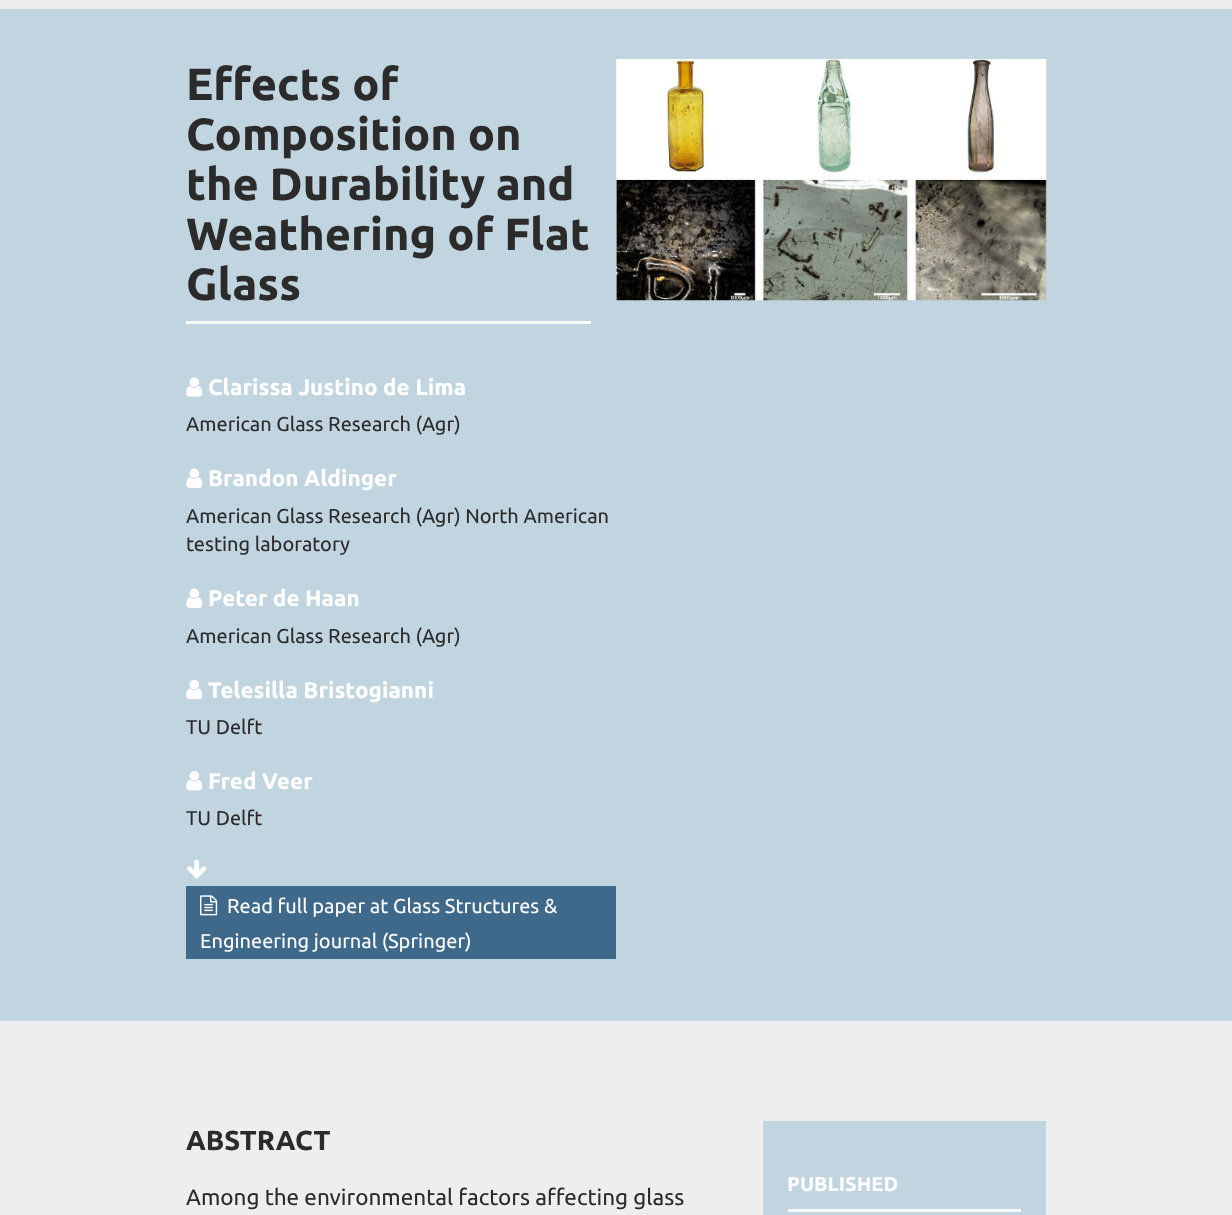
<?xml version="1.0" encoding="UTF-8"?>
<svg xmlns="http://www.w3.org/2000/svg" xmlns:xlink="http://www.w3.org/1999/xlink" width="1232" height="1215">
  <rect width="100%" height="100%" fill="#eeeeee" />
  <rect y="9" width="1232" height="1012" fill="#c1d5e0" />
  <rect x="186" y="321" width="405" height="3" fill="#ffffff" />
  <image x="616" y="59" width="431" height="242" xlink:href="image1.png" />
  <image x="186" y="377" width="17" height="20" xlink:href="image2.png" />
  <image x="186" y="468" width="17" height="20" xlink:href="image3.png" />
  <image x="186" y="588" width="17" height="20" xlink:href="image3.png" />
  <image x="186" y="679" width="17" height="21" xlink:href="image4.png" />
  <image x="186" y="771" width="17" height="20" xlink:href="image5.png" />
  <image x="187" y="859" width="20" height="20" xlink:href="image6.png" />
  <rect x="186" y="886" width="430" height="73" fill="#3f698a" />
  <image x="200" y="895" width="18" height="21" xlink:href="image7.png" />
  <rect x="763" y="1121" width="283" height="94" fill="#c1d5e0" />
  <rect x="788" y="1209" width="233" height="3" fill="#ffffff" />
  <text x="186" y="100" style="font-family: Ubuntu; font-size: 45px; font-weight: bold; fill: #2b2b2b">Effects of</text>
  <text x="186" y="150" style="font-family: Ubuntu; font-size: 45px; font-weight: bold; fill: #2b2b2b">Composition on</text>
  <text x="186" y="200" style="font-family: Ubuntu; font-size: 45px; font-weight: bold; fill: #2b2b2b">the Durability and</text>
  <text x="186" y="250" style="font-family: Ubuntu; font-size: 45px; font-weight: bold; fill: #2b2b2b">Weathering of Flat</text>
  <text x="186" y="300" style="font-family: Ubuntu; font-size: 45px; font-weight: bold; fill: #2b2b2b">Glass</text>
  <text x="208" y="395" style="font-family: Ubuntu; font-size: 22.5px; font-weight: bold; fill: #ffffff">Clarissa Justino de Lima</text>
  <text x="186" y="431" style="font-family: Ubuntu; font-size: 20px; fill: #2b2b2b">American Glass Research (Agr)</text>
  <text x="208" y="486" style="font-family: Ubuntu; font-size: 22.5px; font-weight: bold; fill: #ffffff">Brandon Aldinger</text>
  <text x="186" y="523" style="font-family: Ubuntu; font-size: 20px; fill: #2b2b2b">American Glass Research (Agr) North American</text>
  <text x="186" y="551" style="font-family: Ubuntu; font-size: 20px; fill: #2b2b2b">testing laboratory</text>
  <text x="208" y="606" style="font-family: Ubuntu; font-size: 22.5px; font-weight: bold; fill: #ffffff">Peter de Haan</text>
  <text x="186" y="643" style="font-family: Ubuntu; font-size: 20px; fill: #2b2b2b">American Glass Research (Agr)</text>
  <text x="208" y="698" style="font-family: Ubuntu; font-size: 22.5px; font-weight: bold; fill: #ffffff">Telesilla Bristogianni</text>
  <text x="186" y="734" style="font-family: Ubuntu; font-size: 20px; fill: #2b2b2b">TU Delft</text>
  <text x="208" y="789" style="font-family: Ubuntu; font-size: 22.5px; font-weight: bold; fill: #ffffff">Fred Veer</text>
  <text x="186" y="825" style="font-family: Ubuntu; font-size: 20px; fill: #2b2b2b">TU Delft</text>
  <text x="227" y="913" style="font-family: Ubuntu; font-size: 20px; fill: #ffffff">Read full paper at Glass Structures &amp;</text>
  <text x="200" y="948" style="font-family: Ubuntu; font-size: 20px; fill: #ffffff">Engineering journal (Springer)</text>
  <text x="186" y="1150" style="font-family: Ubuntu; font-size: 27.5px; font-weight: bold; fill: #2b2b2b">ABSTRACT</text>
  <text x="186" y="1205" style="font-family: Ubuntu; font-size: 22.5px; fill: #2b2b2b">Among the environmental factors affecting glass</text>
  <text x="787" y="1191" style="font-family: Ubuntu; font-size: 20px; font-weight: bold; fill: #ffffff">PUBLISHED</text>
</svg>
